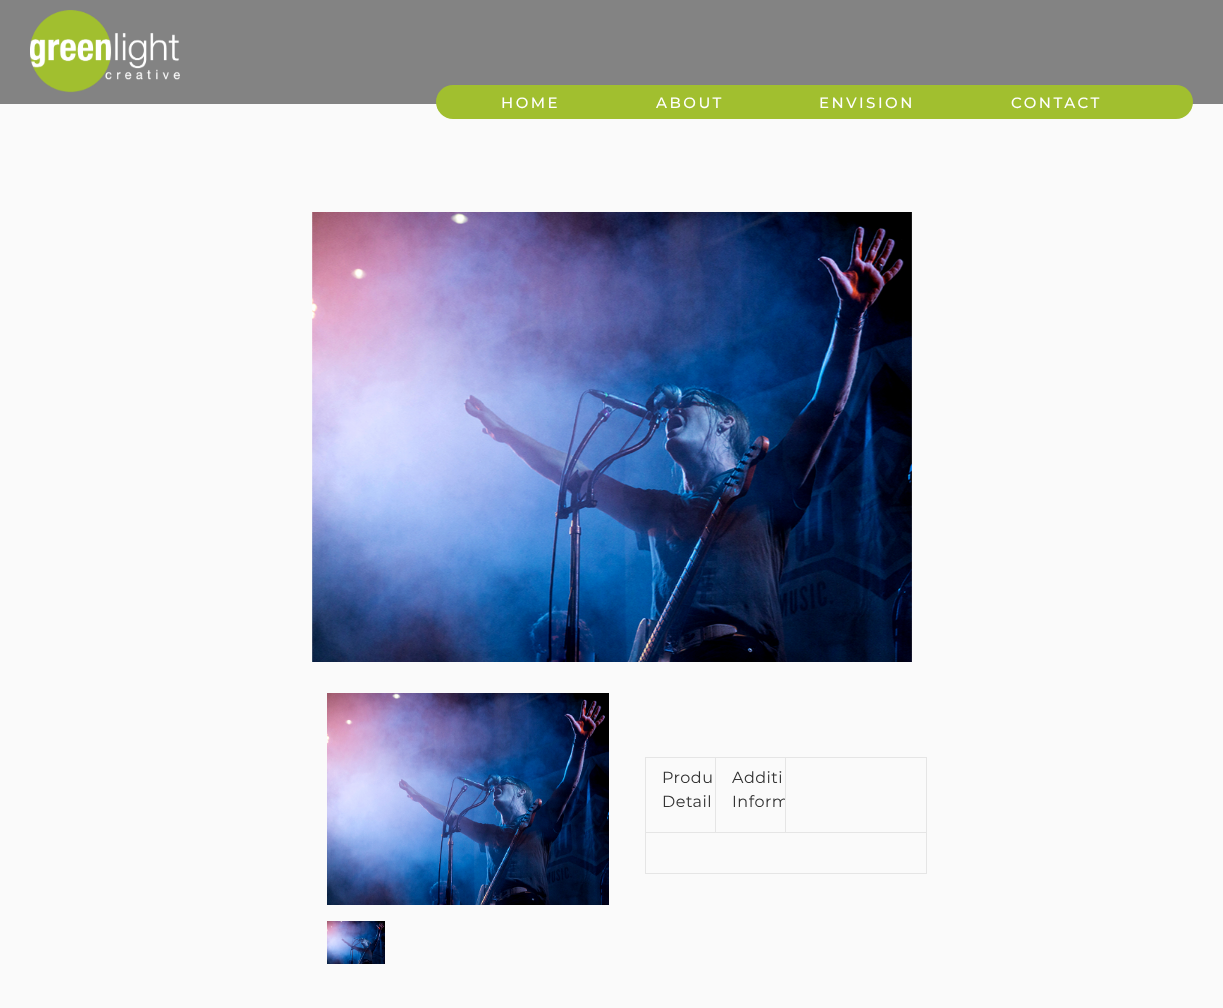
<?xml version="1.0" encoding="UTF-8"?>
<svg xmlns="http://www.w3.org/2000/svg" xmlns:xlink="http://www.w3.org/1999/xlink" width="1223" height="1008">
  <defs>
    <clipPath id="clip1"><rect x="716" y="758" width="69" height="74" /></clipPath>
  </defs>
  <rect width="100%" height="100%" fill="#fafafa" />
  <rect width="1223" height="104" fill="#838383" />
  <image x="30" y="10" width="150" height="83" xlink:href="image1.png" />
  <rect x="436" y="85" width="757" height="34" rx="17" fill="#a1bf2f" />
  <image x="312" y="212" width="600" height="450" xlink:href="image2.png" />
  <image x="327" y="693" width="282" height="212" xlink:href="image3.png" />
  <image x="327" y="921" width="58" height="43" xlink:href="image4.png" />
  <rect x="645" y="757" width="282" height="1" fill="#e5e5e5" />
  <rect x="926" y="757" width="1" height="76" fill="#e5e5e5" />
  <rect x="645" y="757" width="1" height="76" fill="#e5e5e5" />
  <rect x="715" y="758" width="1" height="75" fill="#e5e5e5" />
  <rect x="785" y="758" width="1" height="75" fill="#e5e5e5" />
  <rect x="645.5" y="832.5" width="281" height="41" fill="none" stroke="#e5e5e5" />
  <text x="501" y="108" style="font-family: Montserrat; font-size: 15px; font-weight: 500; letter-spacing: 2.5px; fill: #ffffff">HOME</text>
  <text x="656" y="108" style="font-family: Montserrat; font-size: 15px; font-weight: 500; letter-spacing: 2.5px; fill: #ffffff">ABOUT</text>
  <text x="819" y="108" style="font-family: Montserrat; font-size: 15px; font-weight: 500; letter-spacing: 2.5px; fill: #ffffff">ENVISION</text>
  <text x="1011" y="108" style="font-family: Montserrat; font-size: 15px; font-weight: 500; letter-spacing: 2.5px; fill: #ffffff">CONTACT</text>
  <text x="662" y="783" style="font-family: Montserrat; font-size: 16px; letter-spacing: 0.5px; fill: #333333">Produ</text>
  <text x="662" y="807" style="font-family: Montserrat; font-size: 16px; letter-spacing: 0.5px; fill: #333333">Detail</text>
  <text x="732" y="783" style="font-family: Montserrat; font-size: 16px; letter-spacing: 0.5px; fill: #333333">Additi</text>
  <g clip-path="url(#clip1)">
    <text x="732" y="807" style="font-family: Montserrat; font-size: 16px; letter-spacing: 0.5px; fill: #333333">Inform</text>
  </g>
</svg>
